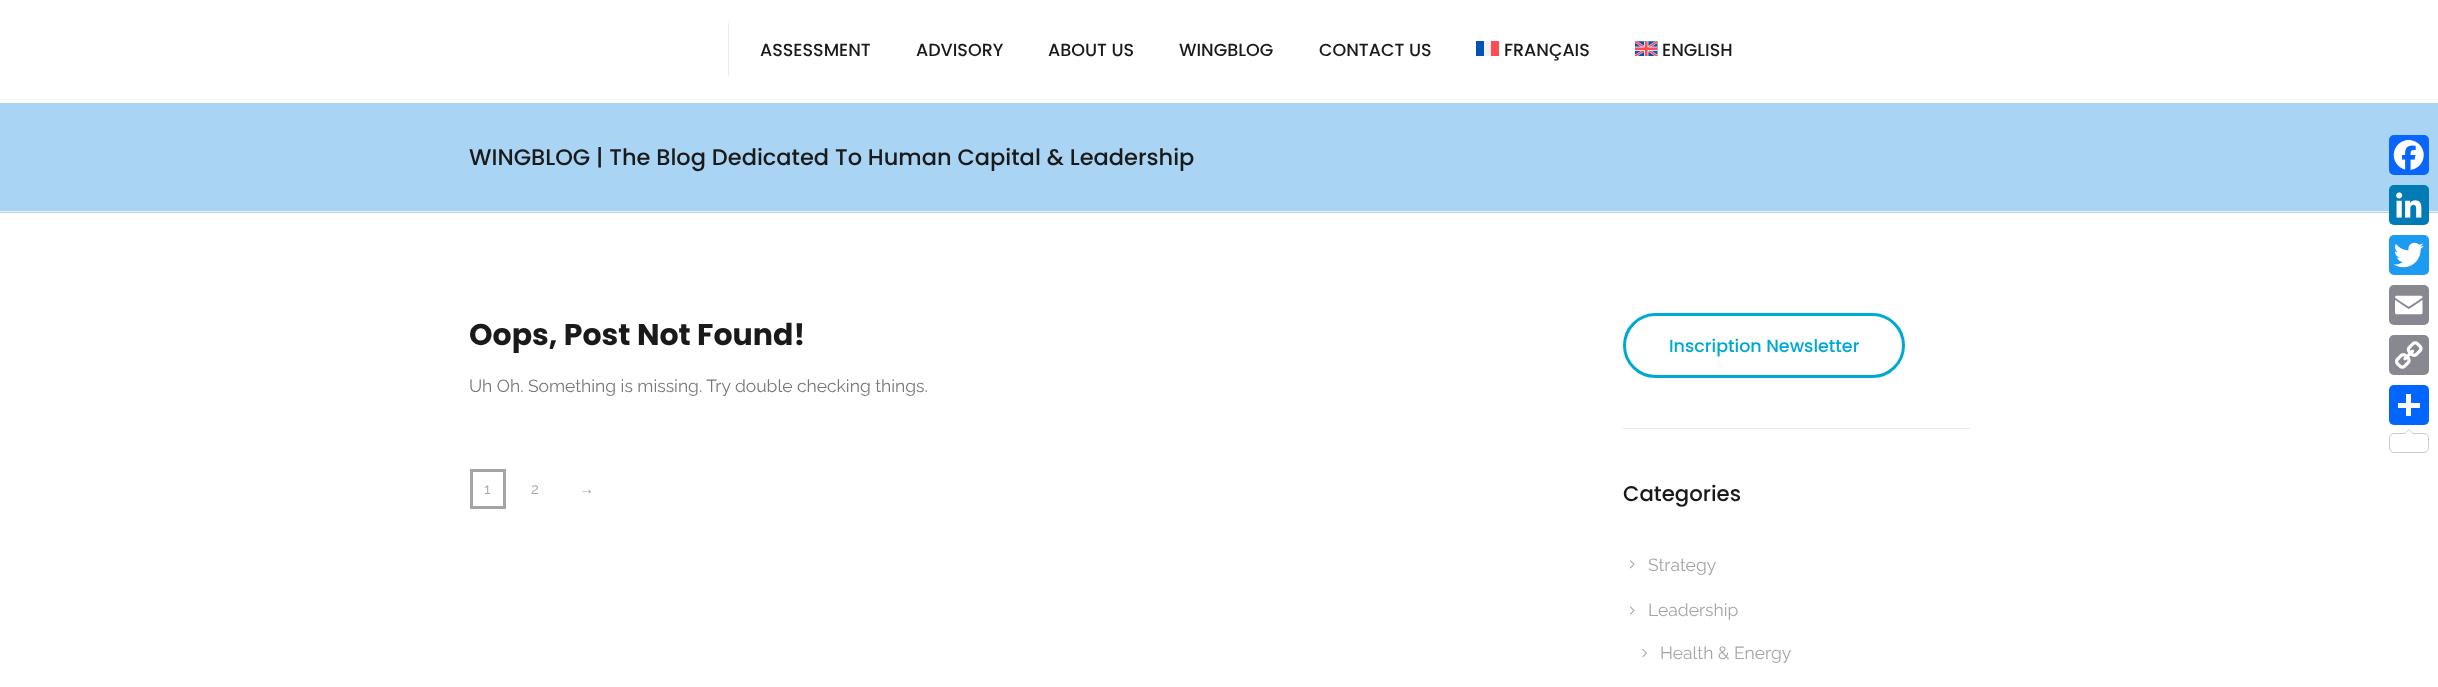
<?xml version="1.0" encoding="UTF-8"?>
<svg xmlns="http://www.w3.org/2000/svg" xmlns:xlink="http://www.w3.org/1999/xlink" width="2438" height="687">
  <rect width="100%" height="100%" fill="#ffffff" />
  <rect y="99" width="2438" height="1" fill="#f1f2f2" />
  <rect x="728" y="23" width="1" height="53" fill="#ebebeb" />
  <rect x="1476" y="41" width="8" height="15" fill="#0052b4" />
  <rect x="1484" y="41" width="7" height="15" fill="#f0f0f0" />
  <rect x="1491" y="41" width="8" height="15" fill="#ff4b55" />
  <image x="1635" y="41" width="23" height="15" xlink:href="image1.png" />
  <rect y="103" width="2438" height="110" fill="#a9d4f3" />
  <rect y="211" width="2438" height="1" fill="#f1f2f2" />
  <rect x="471.5" y="470.5" width="33" height="37" fill="none" stroke="#a5a5a5" stroke-width="3" />
  <rect x="1623" y="428" width="347" height="1" fill="#e8e8e8" />
  <rect x="1624.5" y="314.5" width="279" height="62" rx="31" fill="none" stroke="#00a9d1" stroke-width="3" />
  <image x="1630" y="560" width="5" height="9" xlink:href="image2.png" />
  <image x="1630" y="606" width="5" height="9" xlink:href="image3.png" />
  <image x="1642" y="649" width="5" height="8" xlink:href="image4.png" />
  <rect x="2389" y="135" width="40" height="40" rx="5" fill="#0866ff" />
  <image x="2393" y="140" width="31" height="30" xlink:href="image5.png" />
  <rect x="2389" y="185" width="40" height="40" rx="5" fill="#007bb5" />
  <image x="2396" y="192" width="26" height="26" xlink:href="image6.png" />
  <rect x="2389" y="235" width="40" height="40" rx="5" fill="#1d9bf0" />
  <image x="2394" y="242" width="30" height="26" xlink:href="image7.png" />
  <rect x="2389" y="285" width="40" height="40" rx="5" fill="#888990" />
  <image x="2395" y="295" width="28" height="20" xlink:href="image8.png" />
  <rect x="2389" y="335" width="40" height="40" rx="5" fill="#888990" />
  <image x="2395" y="341" width="28" height="28" xlink:href="image9.png" />
  <rect x="2389" y="385" width="40" height="40" rx="5" fill="#0166ff" />
  <rect x="2406" y="394" width="5" height="22" fill="#ffffff" />
  <rect x="2398" y="403" width="22" height="5" fill="#ffffff" />
  <rect x="2389.5" y="433.5" width="39" height="19" rx="4.5" fill="none" stroke="#cccccc" />
  <path d="M 2414 434 h -10 l 5 -5 z" fill="#cccccc" />
  <path d="M 2414 435 h -10 l 5 -5 z" fill="#ffffff" />
  <text x="760" y="56" style="font-family: Poppins; font-size: 17.5px; font-weight: 500; fill: #1a1a1a">ASSESSMENT</text>
  <text x="916" y="56" style="font-family: Poppins; font-size: 17.5px; font-weight: 500; fill: #1a1a1a">ADVISORY</text>
  <text x="1048" y="56" style="font-family: Poppins; font-size: 17.5px; font-weight: 500; fill: #1a1a1a">ABOUT US</text>
  <text x="1179" y="56" style="font-family: Poppins; font-size: 17.5px; font-weight: 500; fill: #1a1a1a">WINGBLOG</text>
  <text x="1319" y="56" style="font-family: Poppins; font-size: 17.5px; font-weight: 500; fill: #1a1a1a">CONTACT US</text>
  <text x="1504" y="56" style="font-family: Poppins; font-size: 17.5px; font-weight: 500; fill: #1a1a1a">FRANÇAIS</text>
  <text x="1662" y="56" style="font-family: Poppins; font-size: 17.5px; font-weight: 500; fill: #1a1a1a">ENGLISH</text>
  <text x="469" y="165" style="font-family: Poppins; font-size: 22.5px; font-weight: 500; fill: #1a1a1a">WINGBLOG | The Blog Dedicated To Human Capital &amp; Leadership</text>
  <text x="469" y="345" style="font-family: Poppins; font-size: 30px; font-weight: bold; fill: #1a1a1a">Oops, Post Not Found!</text>
  <text x="469" y="392" style="font-family: Raleway; font-size: 17.5px; fill: #777777">Uh Oh. Something is missing. Try double checking things.</text>
  <text x="484" y="494" style="font-family: Raleway; font-size: 15px; fill: #a5a5a5">1</text>
  <text x="531" y="494" style="font-family: Raleway; font-size: 15px; fill: #a5a5a5">2</text>
  <text x="579" y="494" style="font-family: Liberation Sans; font-size: 15px; fill: #a5a5a5">→</text>
  <text x="1669" y="352" style="font-family: Poppins; font-size: 17.5px; font-weight: 500; fill: #00a9d1">Inscription Newsletter</text>
  <text x="1623" y="501" style="font-family: Poppins; font-size: 21.25px; font-weight: 500; fill: #1a1a1a">Categories</text>
  <text x="1648" y="571" style="font-family: Raleway; font-size: 17.5px; fill: #a5a5a5">Strategy</text>
  <text x="1648" y="616" style="font-family: Raleway; font-size: 17.5px; fill: #a5a5a5">Leadership</text>
  <text x="1660" y="659" style="font-family: Raleway; font-size: 17.5px; fill: #a5a5a5">Health &amp; Energy</text>
</svg>
